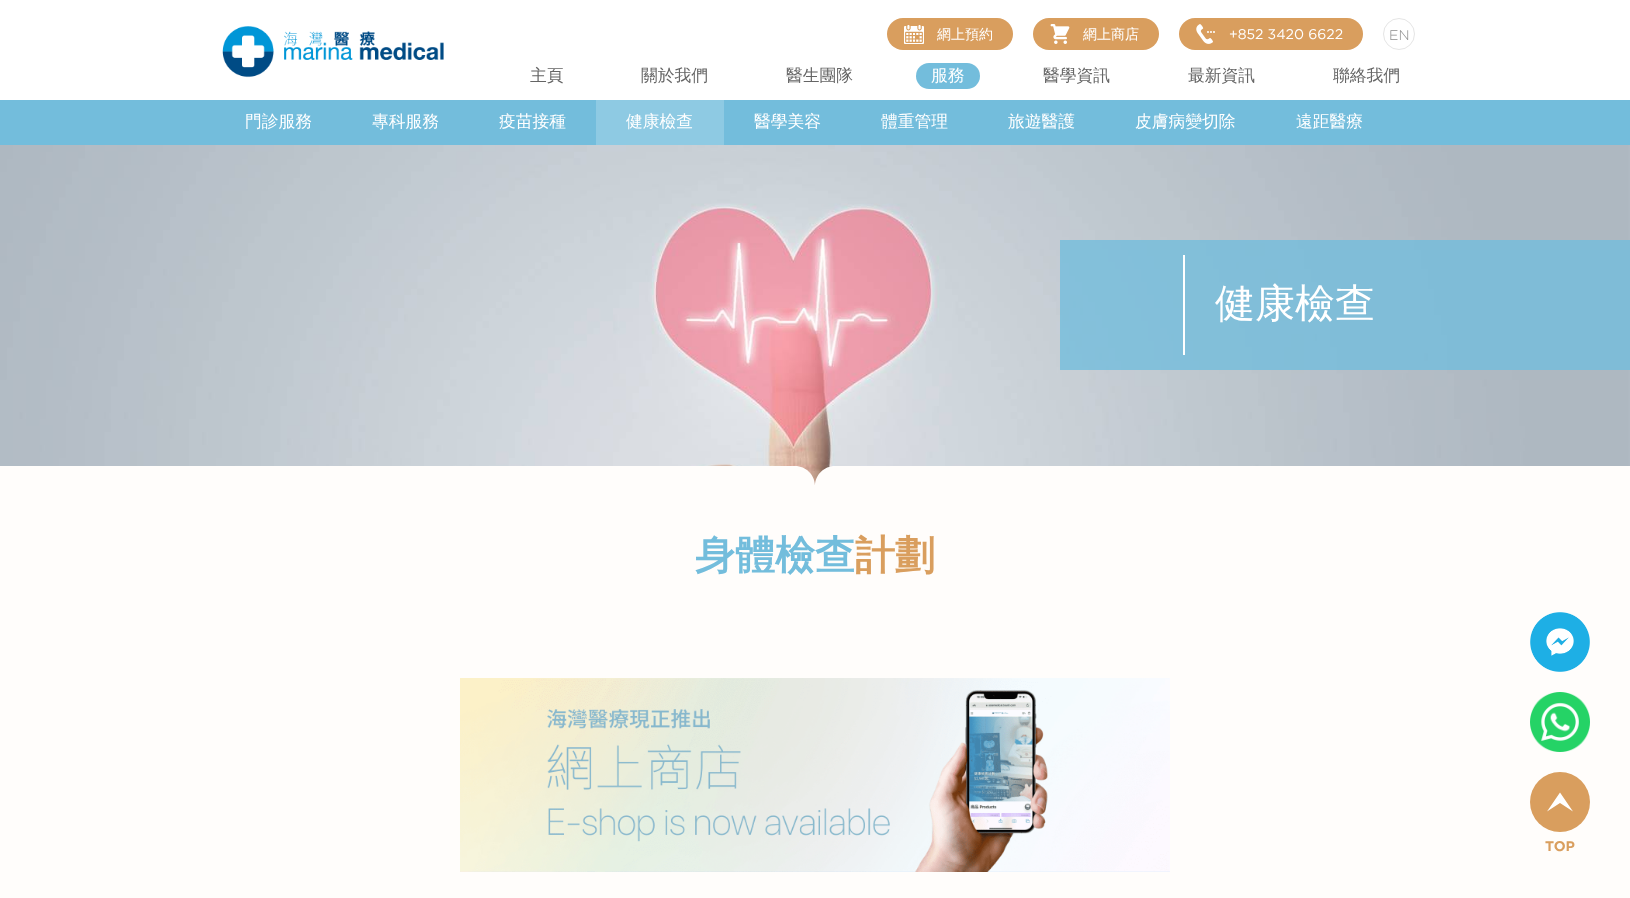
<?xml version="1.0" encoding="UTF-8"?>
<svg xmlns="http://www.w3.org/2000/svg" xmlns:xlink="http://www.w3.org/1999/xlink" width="1630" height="898">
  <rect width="100%" height="100%" fill="#fffdfb" />
  <rect width="1630" height="100" fill="#ffffff" />
  <image x="222" y="26" width="222" height="52" xlink:href="image1.png" />
  <rect x="887" y="18" width="126" height="32" rx="16" fill="#d99e5e" />
  <image x="904" y="25" width="20" height="19" xlink:href="image2.png" />
  <rect x="1033" y="18" width="126" height="32" rx="16" fill="#d99e5e" />
  <image x="1050" y="24" width="20" height="20" xlink:href="image3.png" />
  <rect x="1179" y="18" width="184" height="32" rx="16" fill="#d99e5e" />
  <image x="1196" y="24" width="19" height="20" xlink:href="image4.png" />
  <circle cx="1399" cy="34" r="15.5" fill="none" stroke="#e5e5e5" />
  <rect x="916" y="63" width="64" height="26" rx="13" fill="#73bddc" />
  <rect y="100" width="1630" height="45" fill="#73bddc" />
  <rect x="596" y="100" width="128" height="45" fill="#8ecae3" />
  <image x="0" y="145" width="1630" height="340" xlink:href="image5.png" />
  <rect x="1060" y="240" width="570" height="130" fill="#73bddc" fill-opacity="0.8" />
  <rect x="1183" y="255" width="2" height="100" fill="#ffffff" />
  <path d="M 0 466 h 795 c 11 0 20 9 20 20 v -1 h -815 z" fill="#fffdfb" />
  <path d="M 835 466 h 795 v 19 h -815 v 1 c 0 -11 9 -20 20 -20 z" fill="#fffdfb" />
  <image x="460" y="678" width="710" height="194" xlink:href="image6.png" />
  <image x="1530" y="612" width="60" height="60" xlink:href="image7.png" />
  <image x="1530" y="692" width="60" height="60" xlink:href="image8.png" />
  <circle cx="1560" cy="802" r="30" fill="#d99e5e" />
  <path d="M 1560 803 l -13 8.5 l 13 -19 l 13 19 z" fill="#ffffff" fill-rule="evenodd" />
  <text x="937" y="39" style="font-family: WenQuanYi Zen Hei; font-size: 14px; font-weight: 500; fill: #ffffff">網上預約</text>
  <text x="1083" y="39" style="font-family: WenQuanYi Zen Hei; font-size: 14px; font-weight: 500; fill: #ffffff">網上商店</text>
  <text x="1229" y="39" style="font-family: Gotham; font-size: 14px; fill: #ffffff">+852 3420 6622</text>
  <text x="1389" y="40" style="font-family: Gotham; font-size: 14px; font-weight: 300; fill: #8c8c8c">EN</text>
  <text x="530" y="81" style="font-family: WenQuanYi Zen Hei; font-size: 16.75px; font-weight: 500; fill: #656565">主頁</text>
  <text x="641" y="81" style="font-family: WenQuanYi Zen Hei; font-size: 16.75px; font-weight: 500; fill: #656565">關於我們</text>
  <text x="786" y="81" style="font-family: WenQuanYi Zen Hei; font-size: 16.75px; font-weight: 500; fill: #656565">醫生團隊</text>
  <text x="931" y="81" style="font-family: WenQuanYi Zen Hei; font-size: 16.75px; font-weight: 500; fill: #ffffff">服務</text>
  <text x="1043" y="81" style="font-family: WenQuanYi Zen Hei; font-size: 16.75px; font-weight: 500; fill: #656565">醫學資訊</text>
  <text x="1188" y="81" style="font-family: WenQuanYi Zen Hei; font-size: 16.75px; font-weight: 500; fill: #656565">最新資訊</text>
  <text x="1333" y="81" style="font-family: WenQuanYi Zen Hei; font-size: 16.75px; font-weight: 500; fill: #656565">聯絡我們</text>
  <text x="245" y="127" style="font-family: WenQuanYi Zen Hei; font-size: 16.75px; font-weight: 500; fill: #ffffff">門診服務</text>
  <text x="372" y="127" style="font-family: WenQuanYi Zen Hei; font-size: 16.75px; font-weight: 500; fill: #ffffff">專科服務</text>
  <text x="499" y="127" style="font-family: WenQuanYi Zen Hei; font-size: 16.75px; font-weight: 500; fill: #ffffff">疫苗接種</text>
  <text x="626" y="127" style="font-family: WenQuanYi Zen Hei; font-size: 16.75px; font-weight: 500; fill: #ffffff">健康檢查</text>
  <text x="754" y="127" style="font-family: WenQuanYi Zen Hei; font-size: 16.75px; font-weight: 500; fill: #ffffff">醫學美容</text>
  <text x="881" y="127" style="font-family: WenQuanYi Zen Hei; font-size: 16.75px; font-weight: 500; fill: #ffffff">體重管理</text>
  <text x="1008" y="127" style="font-family: WenQuanYi Zen Hei; font-size: 16.75px; font-weight: 500; fill: #ffffff">旅遊醫護</text>
  <text x="1135" y="127" style="font-family: WenQuanYi Zen Hei; font-size: 16.75px; font-weight: 500; fill: #ffffff">皮膚病變切除</text>
  <text x="1296" y="127" style="font-family: WenQuanYi Zen Hei; font-size: 16.75px; font-weight: 500; fill: #ffffff">遠距醫療</text>
  <text x="1215" y="317" style="font-family: WenQuanYi Zen Hei; font-size: 40px; font-weight: 500; fill: #ffffff">健康檢查</text>
  <text x="695" y="569" style="font-family: WenQuanYi Zen Hei; font-size: 40px; font-weight: bold; fill: #73bddc">身體檢查</text>
  <text x="855" y="569" style="font-family: WenQuanYi Zen Hei; font-size: 40px; font-weight: bold; fill: #d99e5e">計劃</text>
  <text x="1545" y="851" style="font-family: Gotham; font-size: 14px; font-weight: bold; fill: #d99e5e">TOP</text>
</svg>
